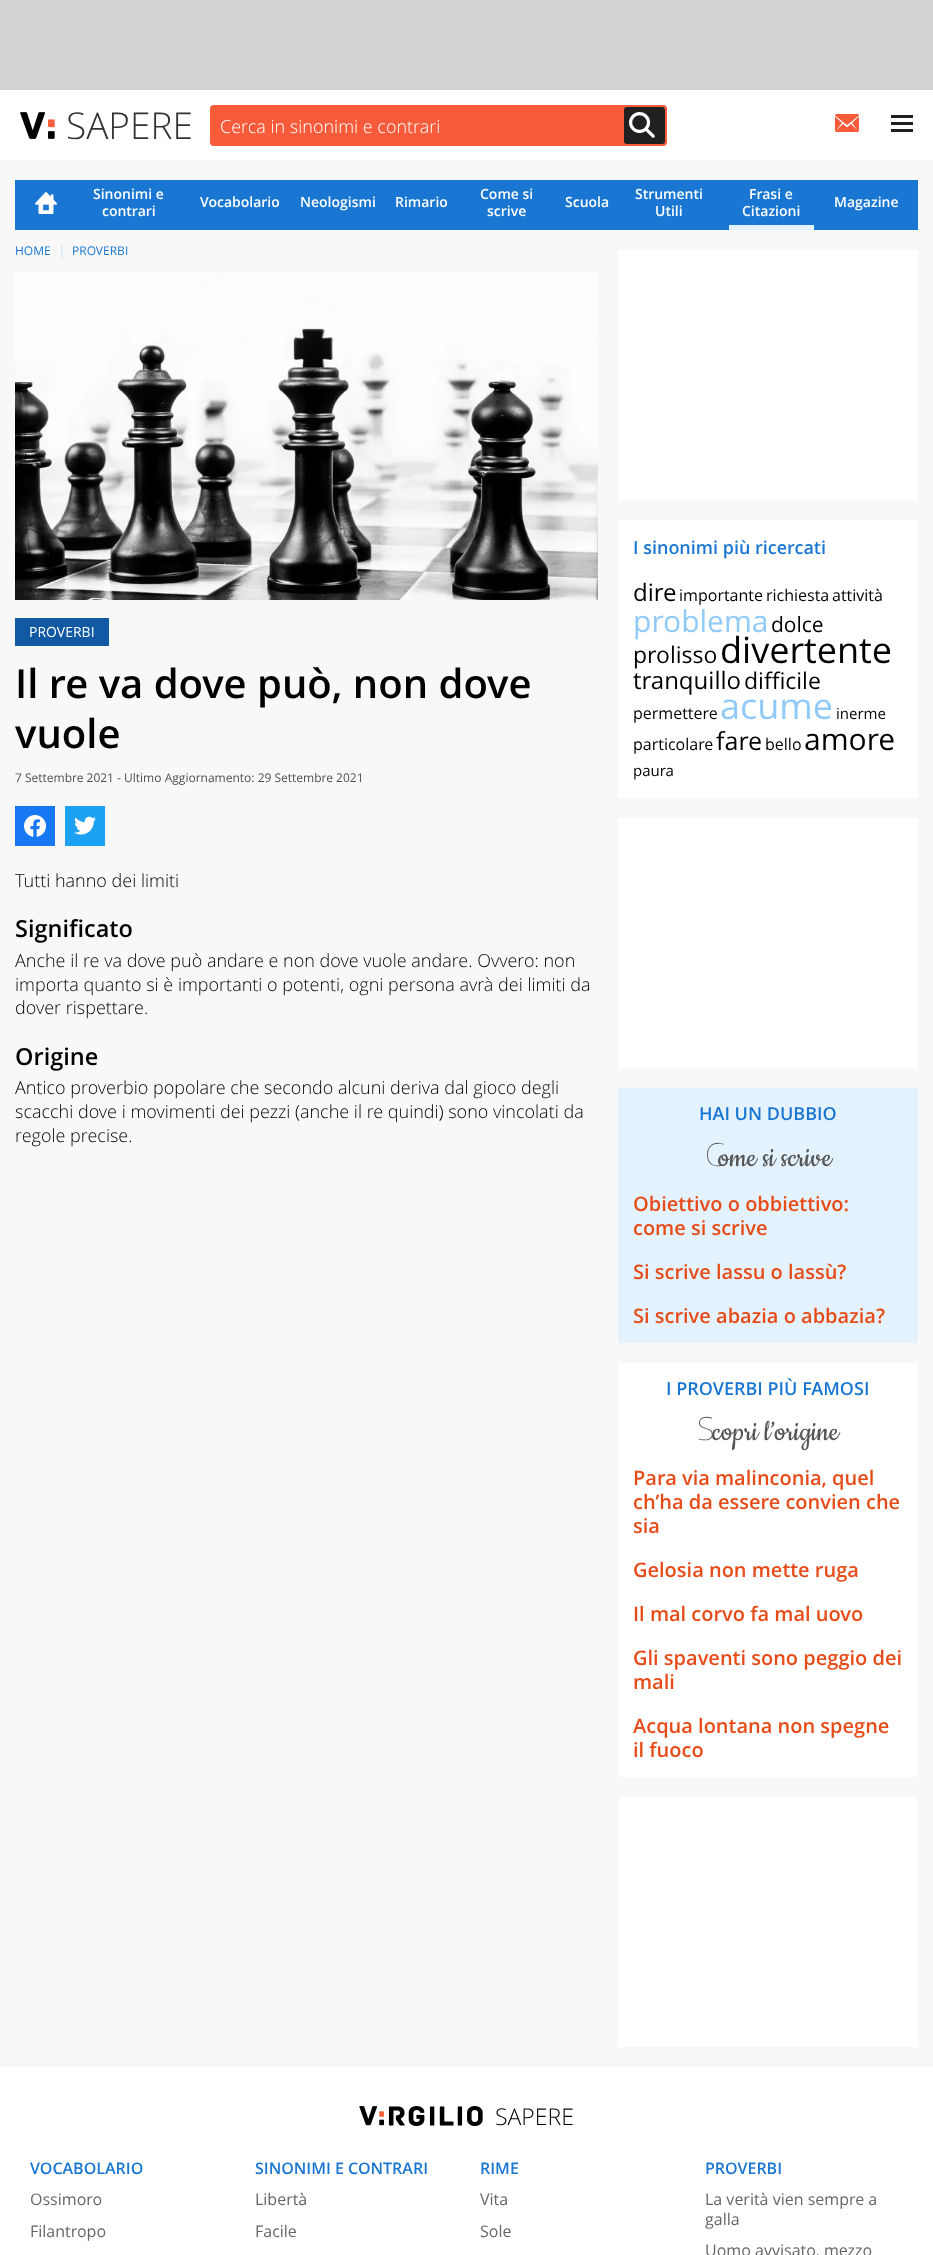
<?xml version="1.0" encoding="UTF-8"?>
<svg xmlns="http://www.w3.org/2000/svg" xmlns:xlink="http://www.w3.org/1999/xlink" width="933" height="2255">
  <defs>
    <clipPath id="clip1"><rect x="51" y="244" width="77" height="14" /></clipPath>
  </defs>
  <rect width="100%" height="100%" fill="#d2d2d2" />
  <rect y="90" width="933" height="70" fill="#ffffff" />
  <image x="20" y="112" width="35" height="27" xlink:href="image1.png" />
  <rect x="210" y="105" width="457" height="41" rx="4" fill="#f85b3a" />
  <rect x="624" y="107" width="41" height="37" rx="3" fill="#202020" />
  <image x="629" y="112" width="26" height="26" xlink:href="image2.png" />
  <image x="835" y="114" width="24" height="18" xlink:href="image3.png" />
  <image x="891" y="115" width="22" height="17" xlink:href="image4.png" />
  <rect y="160" width="933" height="1907" fill="#f8f8f8" />
  <rect x="15" y="180" width="903" height="50" fill="#1976d2" />
  <image x="35" y="192" width="22" height="22" xlink:href="image5.png" />
  <rect x="729" y="225" width="85" height="5" fill="#e4f2fd" />
  <image x="15" y="272" width="583" height="328" xlink:href="image6.png" />
  <rect x="15" y="618" width="94" height="28" fill="#1159a2" />
  <rect x="15" y="806" width="40" height="40" fill="#1877f2" />
  <image x="24" y="815" width="22" height="22" xlink:href="image7.png" />
  <rect x="65" y="806" width="40" height="40" fill="#1da1f2" />
  <image x="74" y="816" width="22" height="19" xlink:href="image8.png" />
  <rect x="618" y="250" width="300" height="250" fill="#ffffff" />
  <rect x="618" y="520" width="300" height="278" fill="#ffffff" />
  <rect x="618" y="818" width="300" height="250" fill="#ffffff" />
  <rect x="618" y="1088" width="300" height="255" fill="#e4f2fd" />
  <rect x="618" y="1363" width="300" height="414" fill="#ffffff" />
  <rect x="618" y="1797" width="300" height="250" fill="#ffffff" />
  <rect y="2067" width="933" height="188" fill="#ffffff" />
  <image x="359" y="2106" width="124" height="20" xlink:href="image9.png" />
  <text x="66" y="139" style="font-family: Open Sans; font-size: 37px; font-weight: 300; fill: #333333">SAPERE</text>
  <text x="220" y="133" style="font-family: Open Sans; font-size: 18px; font-weight: 300; fill: #ffffff">Cerca in sinonimi e contrari</text>
  <text x="93" y="199" style="font-family: Open Sans; font-size: 14px; font-weight: 600; fill: #ffffff">Sinonimi e</text>
  <text x="102" y="216" style="font-family: Open Sans; font-size: 14px; font-weight: 600; fill: #ffffff">contrari</text>
  <text x="200" y="207" style="font-family: Open Sans; font-size: 14px; font-weight: 600; fill: #ffffff">Vocabolario</text>
  <text x="300" y="207" style="font-family: Open Sans; font-size: 14px; font-weight: 600; fill: #ffffff">Neologismi</text>
  <text x="395" y="207" style="font-family: Open Sans; font-size: 14px; font-weight: 600; fill: #ffffff">Rimario</text>
  <text x="480" y="199" style="font-family: Open Sans; font-size: 14px; font-weight: 600; fill: #ffffff">Come si</text>
  <text x="487" y="216" style="font-family: Open Sans; font-size: 14px; font-weight: 600; fill: #ffffff">scrive</text>
  <text x="565" y="207" style="font-family: Open Sans; font-size: 14px; font-weight: 600; fill: #ffffff">Scuola</text>
  <text x="635" y="199" style="font-family: Open Sans; font-size: 14px; font-weight: 600; fill: #ffffff">Strumenti</text>
  <text x="655" y="216" style="font-family: Open Sans; font-size: 14px; font-weight: 600; fill: #ffffff">Utili</text>
  <text x="749" y="199" style="font-family: Open Sans; font-size: 14px; font-weight: 600; fill: #ffffff">Frasi e</text>
  <text x="742" y="216" style="font-family: Open Sans; font-size: 14px; font-weight: 600; fill: #ffffff">Citazioni</text>
  <text x="834" y="207" style="font-family: Open Sans; font-size: 14px; font-weight: 600; fill: #ffffff">Magazine</text>
  <text x="15" y="255" style="font-family: Open Sans; font-size: 12px; fill: #1976d2">HOME</text>
  <g clip-path="url(#clip1)">
    <text x="58" y="256" style="font-family: Open Sans; font-size: 14px; fill: #c1e1fc">|</text>
  </g>
  <text x="72" y="255" style="font-family: Open Sans; font-size: 12px; fill: #1976d2">PROVERBI</text>
  <text x="29" y="637" style="font-family: Open Sans; font-size: 14px; fill: #ffffff">PROVERBI</text>
  <text x="15" y="698" style="font-family: Open Sans; font-size: 40px; font-weight: 600; fill: #000000">Il re va dove può, non dove</text>
  <text x="15" y="748" style="font-family: Open Sans; font-size: 40px; font-weight: 600; fill: #000000">vuole</text>
  <text x="15" y="782" style="font-family: Open Sans; font-size: 12px; fill: #4f4f4f">7 Settembre 2021 - Ultimo Aggiornamento: 29 Settembre 2021</text>
  <text x="15" y="887" style="font-family: Open Sans; font-size: 18px; font-weight: 300; fill: #000000">Tutti hanno dei limiti</text>
  <text x="15" y="937" style="font-family: Open Sans; font-size: 23.5px; font-weight: 600; fill: #000000">Significato</text>
  <text x="15" y="967" style="font-family: Open Sans; font-size: 18px; font-weight: 300; fill: #000000">Anche il re va dove può andare e non dove vuole andare. Ovvero: non</text>
  <text x="15" y="991" style="font-family: Open Sans; font-size: 18px; font-weight: 300; fill: #000000">importa quanto si è importanti o potenti, ogni persona avrà dei limiti da</text>
  <text x="15" y="1014" style="font-family: Open Sans; font-size: 18px; font-weight: 300; fill: #000000">dover rispettare.</text>
  <text x="15" y="1065" style="font-family: Open Sans; font-size: 23.5px; font-weight: 600; fill: #000000">Origine</text>
  <text x="15" y="1094" style="font-family: Open Sans; font-size: 18px; font-weight: 300; fill: #000000">Antico proverbio popolare che secondo alcuni deriva dal gioco degli</text>
  <text x="15" y="1118" style="font-family: Open Sans; font-size: 18px; font-weight: 300; fill: #000000">scacchi dove i movimenti dei pezzi (anche il re quindi) sono vincolati da</text>
  <text x="15" y="1142" style="font-family: Open Sans; font-size: 18px; font-weight: 300; fill: #000000">regole precise.</text>
  <text x="633" y="554" style="font-family: Open Sans; font-size: 18px; font-weight: 600; fill: #1976d2">I sinonimi più ricercati</text>
  <text x="633" y="601" style="font-family: Open Sans; font-size: 24px; fill: #000000">dire</text>
  <text x="679" y="601" style="font-family: Open Sans; font-size: 16px; fill: #000000">importante</text>
  <text x="766" y="601" style="font-family: Open Sans; font-size: 16px; fill: #000000">richiesta</text>
  <text x="832" y="601" style="font-family: Open Sans; font-size: 16px; fill: #000000">attività</text>
  <text x="633" y="632" style="font-family: Open Sans; font-size: 30px; fill: #90caf9">problema</text>
  <text x="771" y="632" style="font-family: Open Sans; font-size: 21px; fill: #000000">dolce</text>
  <text x="633" y="663" style="font-family: Open Sans; font-size: 23px; fill: #000000">prolisso</text>
  <text x="720" y="663" style="font-family: Open Sans; font-size: 36px; fill: #000000">divertente</text>
  <text x="633" y="689" style="font-family: Open Sans; font-size: 24px; fill: #000000">tranquillo</text>
  <text x="744" y="689" style="font-family: Open Sans; font-size: 23px; fill: #000000">difficile</text>
  <text x="633" y="719" style="font-family: Open Sans; font-size: 16px; fill: #000000">permettere</text>
  <text x="720" y="719" style="font-family: Open Sans; font-size: 36px; fill: #90caf9">acume</text>
  <text x="836" y="719" style="font-family: Open Sans; font-size: 15px; fill: #000000">inerme</text>
  <text x="633" y="750" style="font-family: Open Sans; font-size: 16px; fill: #000000">particolare</text>
  <text x="716" y="750" style="font-family: Open Sans; font-size: 25px; fill: #000000">fare</text>
  <text x="765" y="750" style="font-family: Open Sans; font-size: 16px; fill: #000000">bello</text>
  <text x="804" y="750" style="font-family: Open Sans; font-size: 30px; fill: #000000">amore</text>
  <text x="633" y="776" style="font-family: Open Sans; font-size: 15px; fill: #000000">paura</text>
  <text x="699" y="1120" style="font-family: Open Sans; font-size: 18px; font-weight: 600; fill: #1976d2">HAI UN DUBBIO</text>
  <text x="705" y="1166" style="font-family: Noto Sans; font-size: 32px; font-weight: 100; fill: #555555">C</text>
  <text x="718" y="1166" style="font-family: Cookie; font-size: 32px; fill: #555555">ome si scrive</text>
  <text x="633" y="1211" style="font-family: Open Sans; font-size: 20px; font-weight: 600; fill: #e74b18">Obiettivo o obbiettivo:</text>
  <text x="633" y="1235" style="font-family: Open Sans; font-size: 20px; font-weight: 600; fill: #e74b18">come si scrive</text>
  <text x="633" y="1279" style="font-family: Open Sans; font-size: 20px; font-weight: 600; fill: #e74b18">Si scrive lassu o lassù?</text>
  <text x="633" y="1323" style="font-family: Open Sans; font-size: 20px; font-weight: 600; fill: #e74b18">Si scrive abazia o abbazia?</text>
  <text x="666" y="1395" style="font-family: Open Sans; font-size: 18px; font-weight: 600; fill: #1976d2">I PROVERBI PIÙ FAMOSI</text>
  <text x="697" y="1440" style="font-family: Noto Sans; font-size: 32px; font-weight: 100; fill: #555555">S</text>
  <text x="712" y="1440" style="font-family: Cookie; font-size: 32px; fill: #555555">copri l’origine</text>
  <text x="633" y="1485" style="font-family: Open Sans; font-size: 20px; font-weight: 600; fill: #e74b18">Para via malinconia, quel</text>
  <text x="633" y="1509" style="font-family: Open Sans; font-size: 20px; font-weight: 600; fill: #e74b18">ch’ha da essere convien che</text>
  <text x="633" y="1533" style="font-family: Open Sans; font-size: 20px; font-weight: 600; fill: #e74b18">sia</text>
  <text x="633" y="1577" style="font-family: Open Sans; font-size: 20px; font-weight: 600; fill: #e74b18">Gelosia non mette ruga</text>
  <text x="633" y="1621" style="font-family: Open Sans; font-size: 20px; font-weight: 600; fill: #e74b18">Il mal corvo fa mal uovo</text>
  <text x="633" y="1665" style="font-family: Open Sans; font-size: 20px; font-weight: 600; fill: #e74b18">Gli spaventi sono peggio dei</text>
  <text x="633" y="1689" style="font-family: Open Sans; font-size: 20px; font-weight: 600; fill: #e74b18">mali</text>
  <text x="633" y="1733" style="font-family: Open Sans; font-size: 20px; font-weight: 600; fill: #e74b18">Acqua lontana non spegne</text>
  <text x="633" y="1757" style="font-family: Open Sans; font-size: 20px; font-weight: 600; fill: #e74b18">il fuoco</text>
  <text x="495" y="2125" style="font-family: Open Sans; font-size: 23px; font-weight: 300; fill: #000000">SAPERE</text>
  <text x="30" y="2174" style="font-family: Open Sans; font-size: 16px; font-weight: 600; fill: #1976d2">VOCABOLARIO</text>
  <text x="30" y="2205" style="font-family: Open Sans; font-size: 16px; fill: #666666">Ossimoro</text>
  <text x="30" y="2237" style="font-family: Open Sans; font-size: 16px; fill: #666666">Filantropo</text>
  <text x="255" y="2174" style="font-family: Open Sans; font-size: 16px; font-weight: 600; fill: #1976d2">SINONIMI E CONTRARI</text>
  <text x="255" y="2205" style="font-family: Open Sans; font-size: 16px; fill: #666666">Libertà</text>
  <text x="255" y="2237" style="font-family: Open Sans; font-size: 16px; fill: #666666">Facile</text>
  <text x="480" y="2174" style="font-family: Open Sans; font-size: 16px; font-weight: 600; fill: #1976d2">RIME</text>
  <text x="480" y="2205" style="font-family: Open Sans; font-size: 16px; fill: #666666">Vita</text>
  <text x="480" y="2237" style="font-family: Open Sans; font-size: 16px; fill: #666666">Sole</text>
  <text x="705" y="2174" style="font-family: Open Sans; font-size: 16px; font-weight: 600; fill: #1976d2">PROVERBI</text>
  <text x="705" y="2205" style="font-family: Open Sans; font-size: 16px; fill: #666666">La verità vien sempre a</text>
  <text x="705" y="2225" style="font-family: Open Sans; font-size: 16px; fill: #666666">galla</text>
  <text x="705" y="2256" style="font-family: Open Sans; font-size: 16px; fill: #666666">Uomo avvisato, mezzo</text>
</svg>
